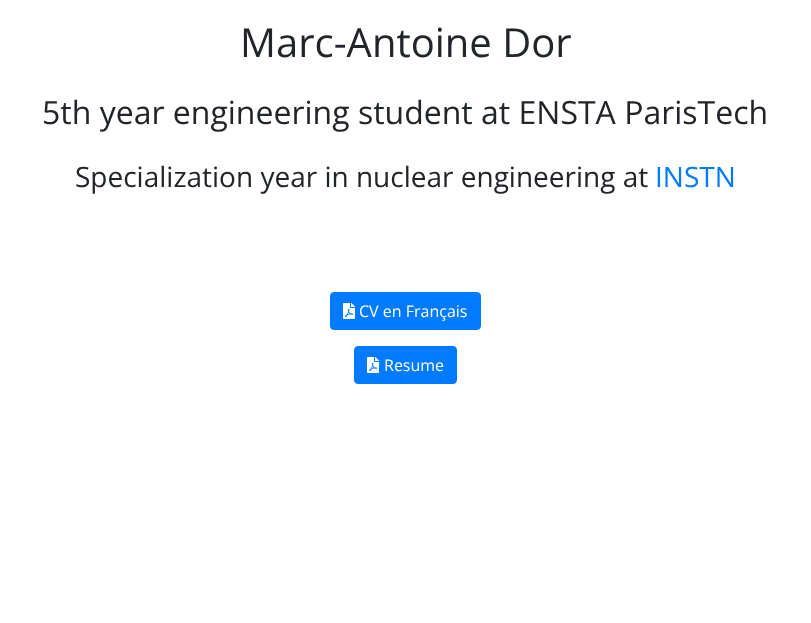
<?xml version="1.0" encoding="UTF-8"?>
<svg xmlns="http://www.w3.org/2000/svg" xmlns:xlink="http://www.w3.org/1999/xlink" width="811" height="623">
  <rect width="100%" height="100%" fill="#ffffff" />
  <rect x="330.5" y="292.5" width="150" height="37" rx="3.5" fill="#007bff" stroke="#007bff" />
  <image x="343" y="303" width="12" height="16" xlink:href="image1.png" />
  <rect x="354.5" y="346.5" width="102" height="37" rx="3.5" fill="#007bff" stroke="#007bff" />
  <image x="367" y="357" width="12" height="16" xlink:href="image1.png" />
  <text x="240" y="57" style="font-family: Open Sans; font-size: 40px; fill: #212529">Marc-Antoine Dor</text>
  <text x="42" y="124" style="font-family: Open Sans; font-size: 32px; fill: #212529">5th year engineering student at ENSTA ParisTech</text>
  <text x="75" y="187" style="font-family: Open Sans; font-size: 28px; fill: #212529">Specialization year in nuclear engineering at</text>
  <text x="655" y="187" style="font-family: Open Sans; font-size: 28px; fill: #007bff">INSTN</text>
  <text x="359" y="317" style="font-family: Open Sans; font-size: 16px; fill: #ffffff">CV en Français</text>
  <text x="384" y="371" style="font-family: Open Sans; font-size: 16px; fill: #ffffff">Resume</text>
</svg>
